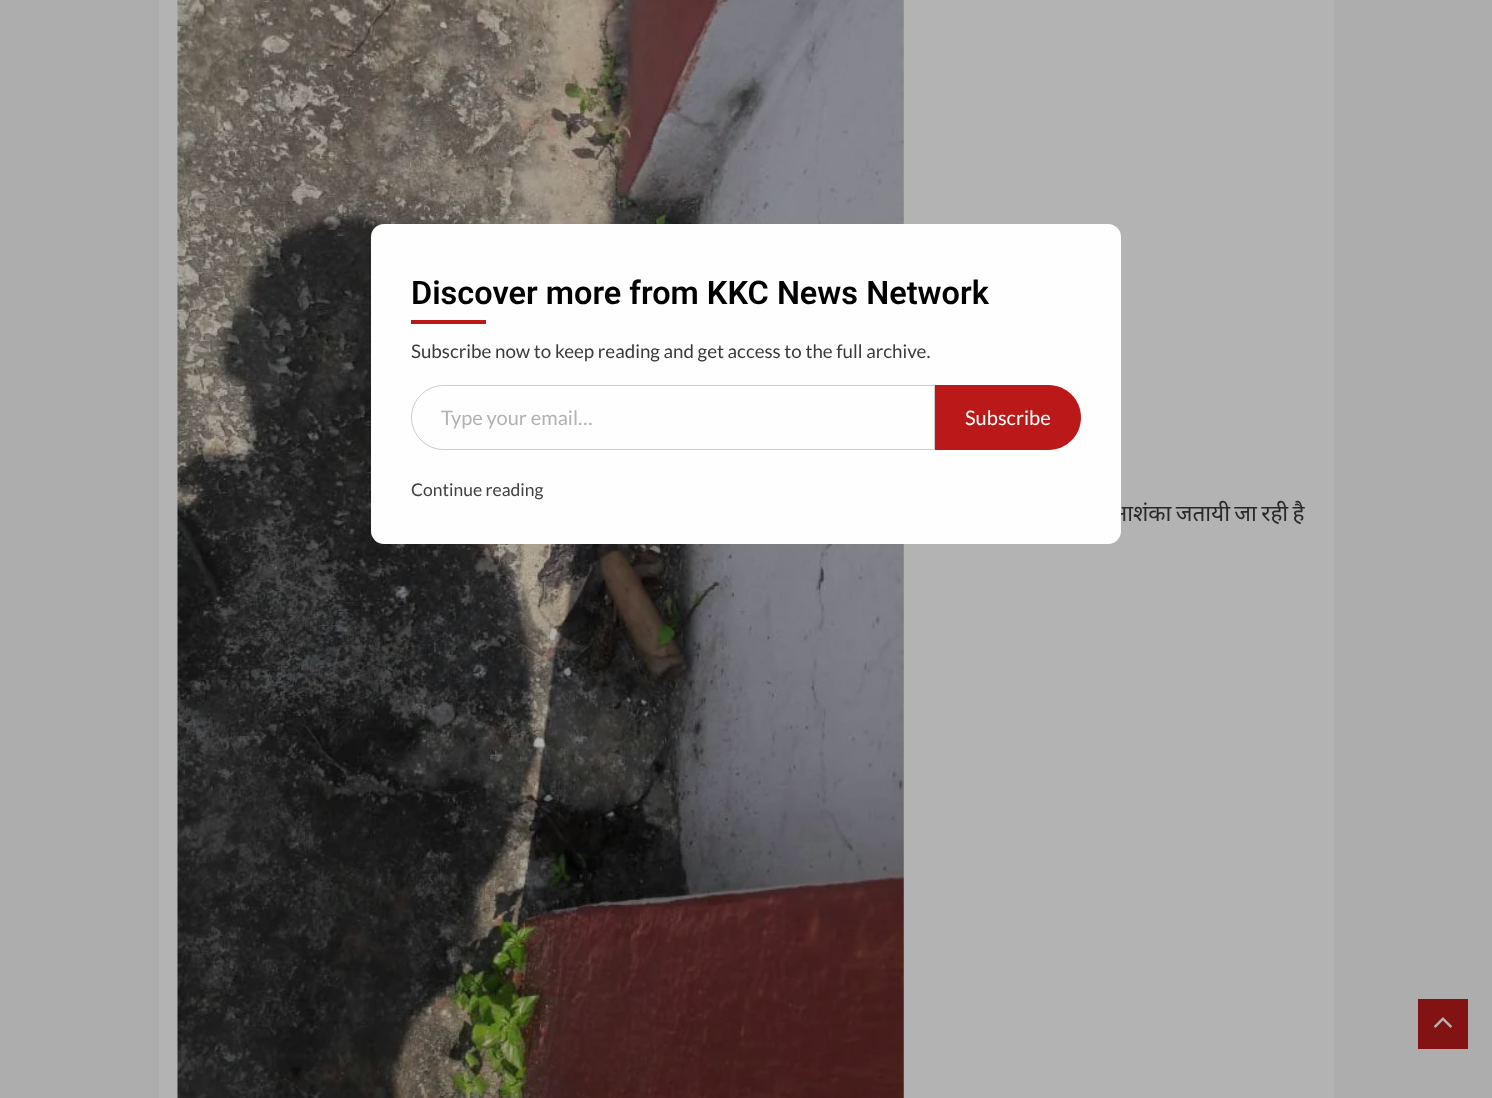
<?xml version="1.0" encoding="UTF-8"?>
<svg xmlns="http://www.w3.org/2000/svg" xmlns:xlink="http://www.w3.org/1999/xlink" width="1492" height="1098">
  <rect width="100%" height="100%" fill="#adadad" />
  <rect x="159" width="1175" height="1098" fill="#b3b3b3" />
  <image x="177" y="0" width="727" height="1098" xlink:href="image1.png" />
  <rect x="1418" y="999" width="50" height="50" fill="#831212" />
  <image x="1433" y="1017" width="19" height="11" xlink:href="image2.png" />
  <text x="1110" y="521" word-spacing="-1.5" style="font-family: Noto Sans; font-size: 22.5px; fill: #292929">आशंका जतायी जा रही है</text>
  <rect x="371" y="224" width="750" height="320" rx="13" fill="#fefefe" />
  <rect x="411" y="320" width="75" height="4" fill="#bb1919" />
  <text x="411" y="304" style="font-family: Roboto; font-size: 32.5px; font-weight: 600; fill: #000000">Discover more from KKC News Network</text>
  <text x="411" y="496" style="font-family: Lato; font-size: 17.5px; fill: #404040">Continue reading</text>
  <path d="M 935 385 h 113.5 c 18 0 32.5 14.5 32.5 32.5 c 0 18 -14.5 32.5 -32.5 32.5 h -113.5 z" fill="#bb1919" />
  <text x="965" y="425" style="font-family: Lato; font-size: 20px; fill: #ffffff">Subscribe</text>
  <path d="M 443.5 385.5 h 491 v 64 h -491 c -17.5 0 -32 -14.5 -32 -32 c 0 -17.5 14.5 -32 32 -32 z" fill="none" stroke="#cccccc" />
  <text x="441" y="425" style="font-family: Lato; font-size: 20px; fill: #b2b2b2">Type your email…</text>
  <text x="411" y="358" style="font-family: Lato; font-size: 18.75px; fill: #3a3a3a">Subscribe now to keep reading and get access to the full archive.</text>
</svg>
